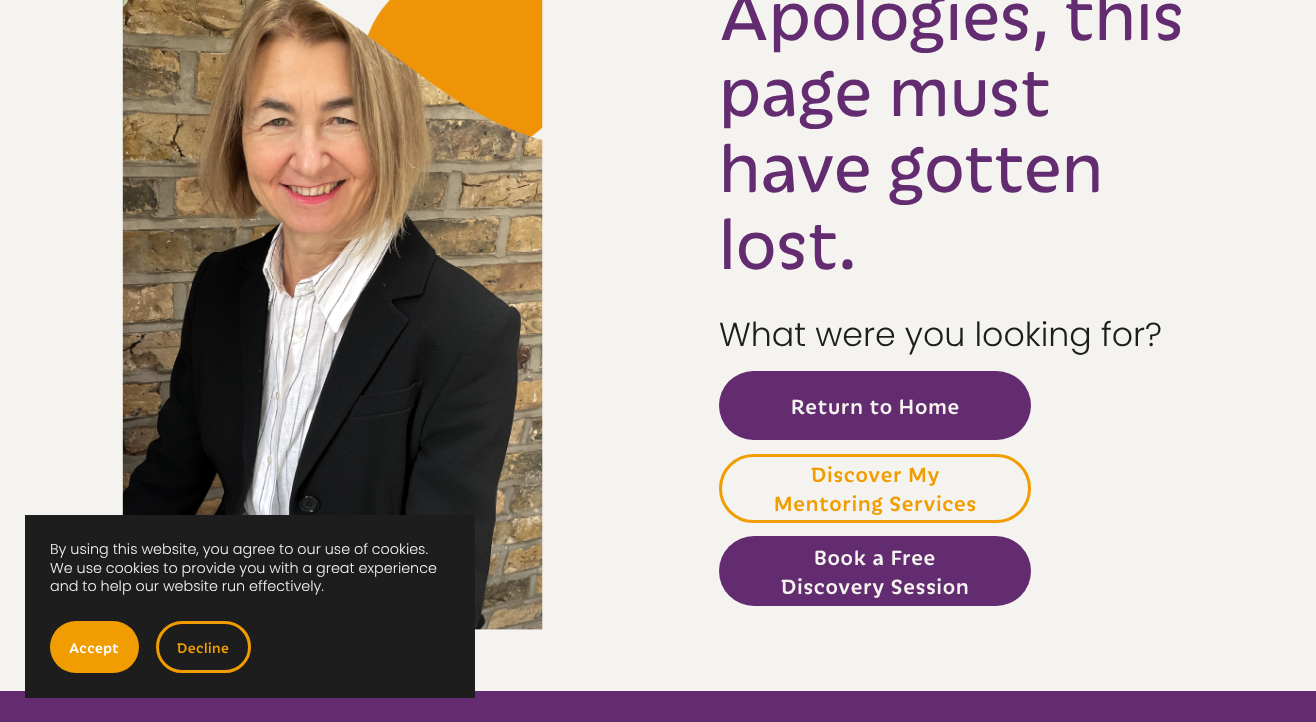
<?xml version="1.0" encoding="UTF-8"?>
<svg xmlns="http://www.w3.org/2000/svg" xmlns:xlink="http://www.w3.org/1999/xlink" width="1316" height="722">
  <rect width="100%" height="100%" fill="#632c70" />
  <rect width="1316" height="691" fill="#f4f3ef" />
  <image x="122" y="0" width="421" height="630" xlink:href="image1.png" />
  <rect x="25" y="515" width="450" height="183" fill="#1d1d1d" />
  <rect x="50" y="621" width="89" height="52" rx="26" fill="#f19d01" />
  <rect x="157.5" y="622.5" width="92" height="49" rx="24.5" fill="none" stroke="#f19d01" stroke-width="3" />
  <rect x="719" y="371" width="312" height="69" rx="34.5" fill="#632c70" />
  <rect x="720.5" y="455.5" width="309" height="66" rx="33" fill="none" stroke="#f19d01" stroke-width="3" />
  <rect x="719" y="536" width="312" height="70" rx="35" fill="#632c70" />
  <text x="50" y="554" style="font-family: Poppins; font-size: 14.35px; font-weight: 300; fill: #f4f3ef">By using this website, you agree to our use of cookies.</text>
  <text x="50" y="573" style="font-family: Poppins; font-size: 14.35px; font-weight: 300; fill: #f4f3ef">We use cookies to provide you with a great experience</text>
  <text x="50" y="591" style="font-family: Poppins; font-size: 14.35px; font-weight: 300; fill: #f4f3ef">and to help our website run effectively.</text>
  <text x="69" y="653" style="font-family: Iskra; font-size: 15px; font-weight: 500; letter-spacing: 0.5px; fill: #ffffff">Accept</text>
  <text x="177" y="653" style="font-family: Iskra; font-size: 15px; font-weight: 500; letter-spacing: 0.5px; fill: #f19d01">Decline</text>
  <text x="719" y="40" style="font-family: Iskra; font-size: 74.5px; fill: #632c70">Apologies, this</text>
  <text x="719" y="116" style="font-family: Iskra; font-size: 74.5px; fill: #632c70">page must</text>
  <text x="719" y="192" style="font-family: Iskra; font-size: 74.5px; fill: #632c70">have gotten</text>
  <text x="719" y="269" style="font-family: Iskra; font-size: 74.5px; fill: #632c70">lost.</text>
  <text x="719" y="346" style="font-family: Poppins; font-size: 33.25px; font-weight: 300; fill: #1d1d1d">What were you looking for?</text>
  <text x="791" y="414" style="font-family: Iskra; font-size: 22.25px; font-weight: 500; letter-spacing: 0.9px; fill: #f4f3ef">Return to Home</text>
  <text x="811" y="482" style="font-family: Iskra; font-size: 22.25px; font-weight: 500; letter-spacing: 0.9px; fill: #f19d01">Discover My</text>
  <text x="774" y="511" style="font-family: Iskra; font-size: 22.25px; font-weight: 500; letter-spacing: 0.9px; fill: #f19d01">Mentoring Services</text>
  <text x="814" y="565" style="font-family: Iskra; font-size: 22.25px; font-weight: 500; letter-spacing: 0.9px; fill: #f4f3ef">Book a Free</text>
  <text x="781" y="594" style="font-family: Iskra; font-size: 22.25px; font-weight: 500; letter-spacing: 0.9px; fill: #f4f3ef">Discovery Session</text>
</svg>
